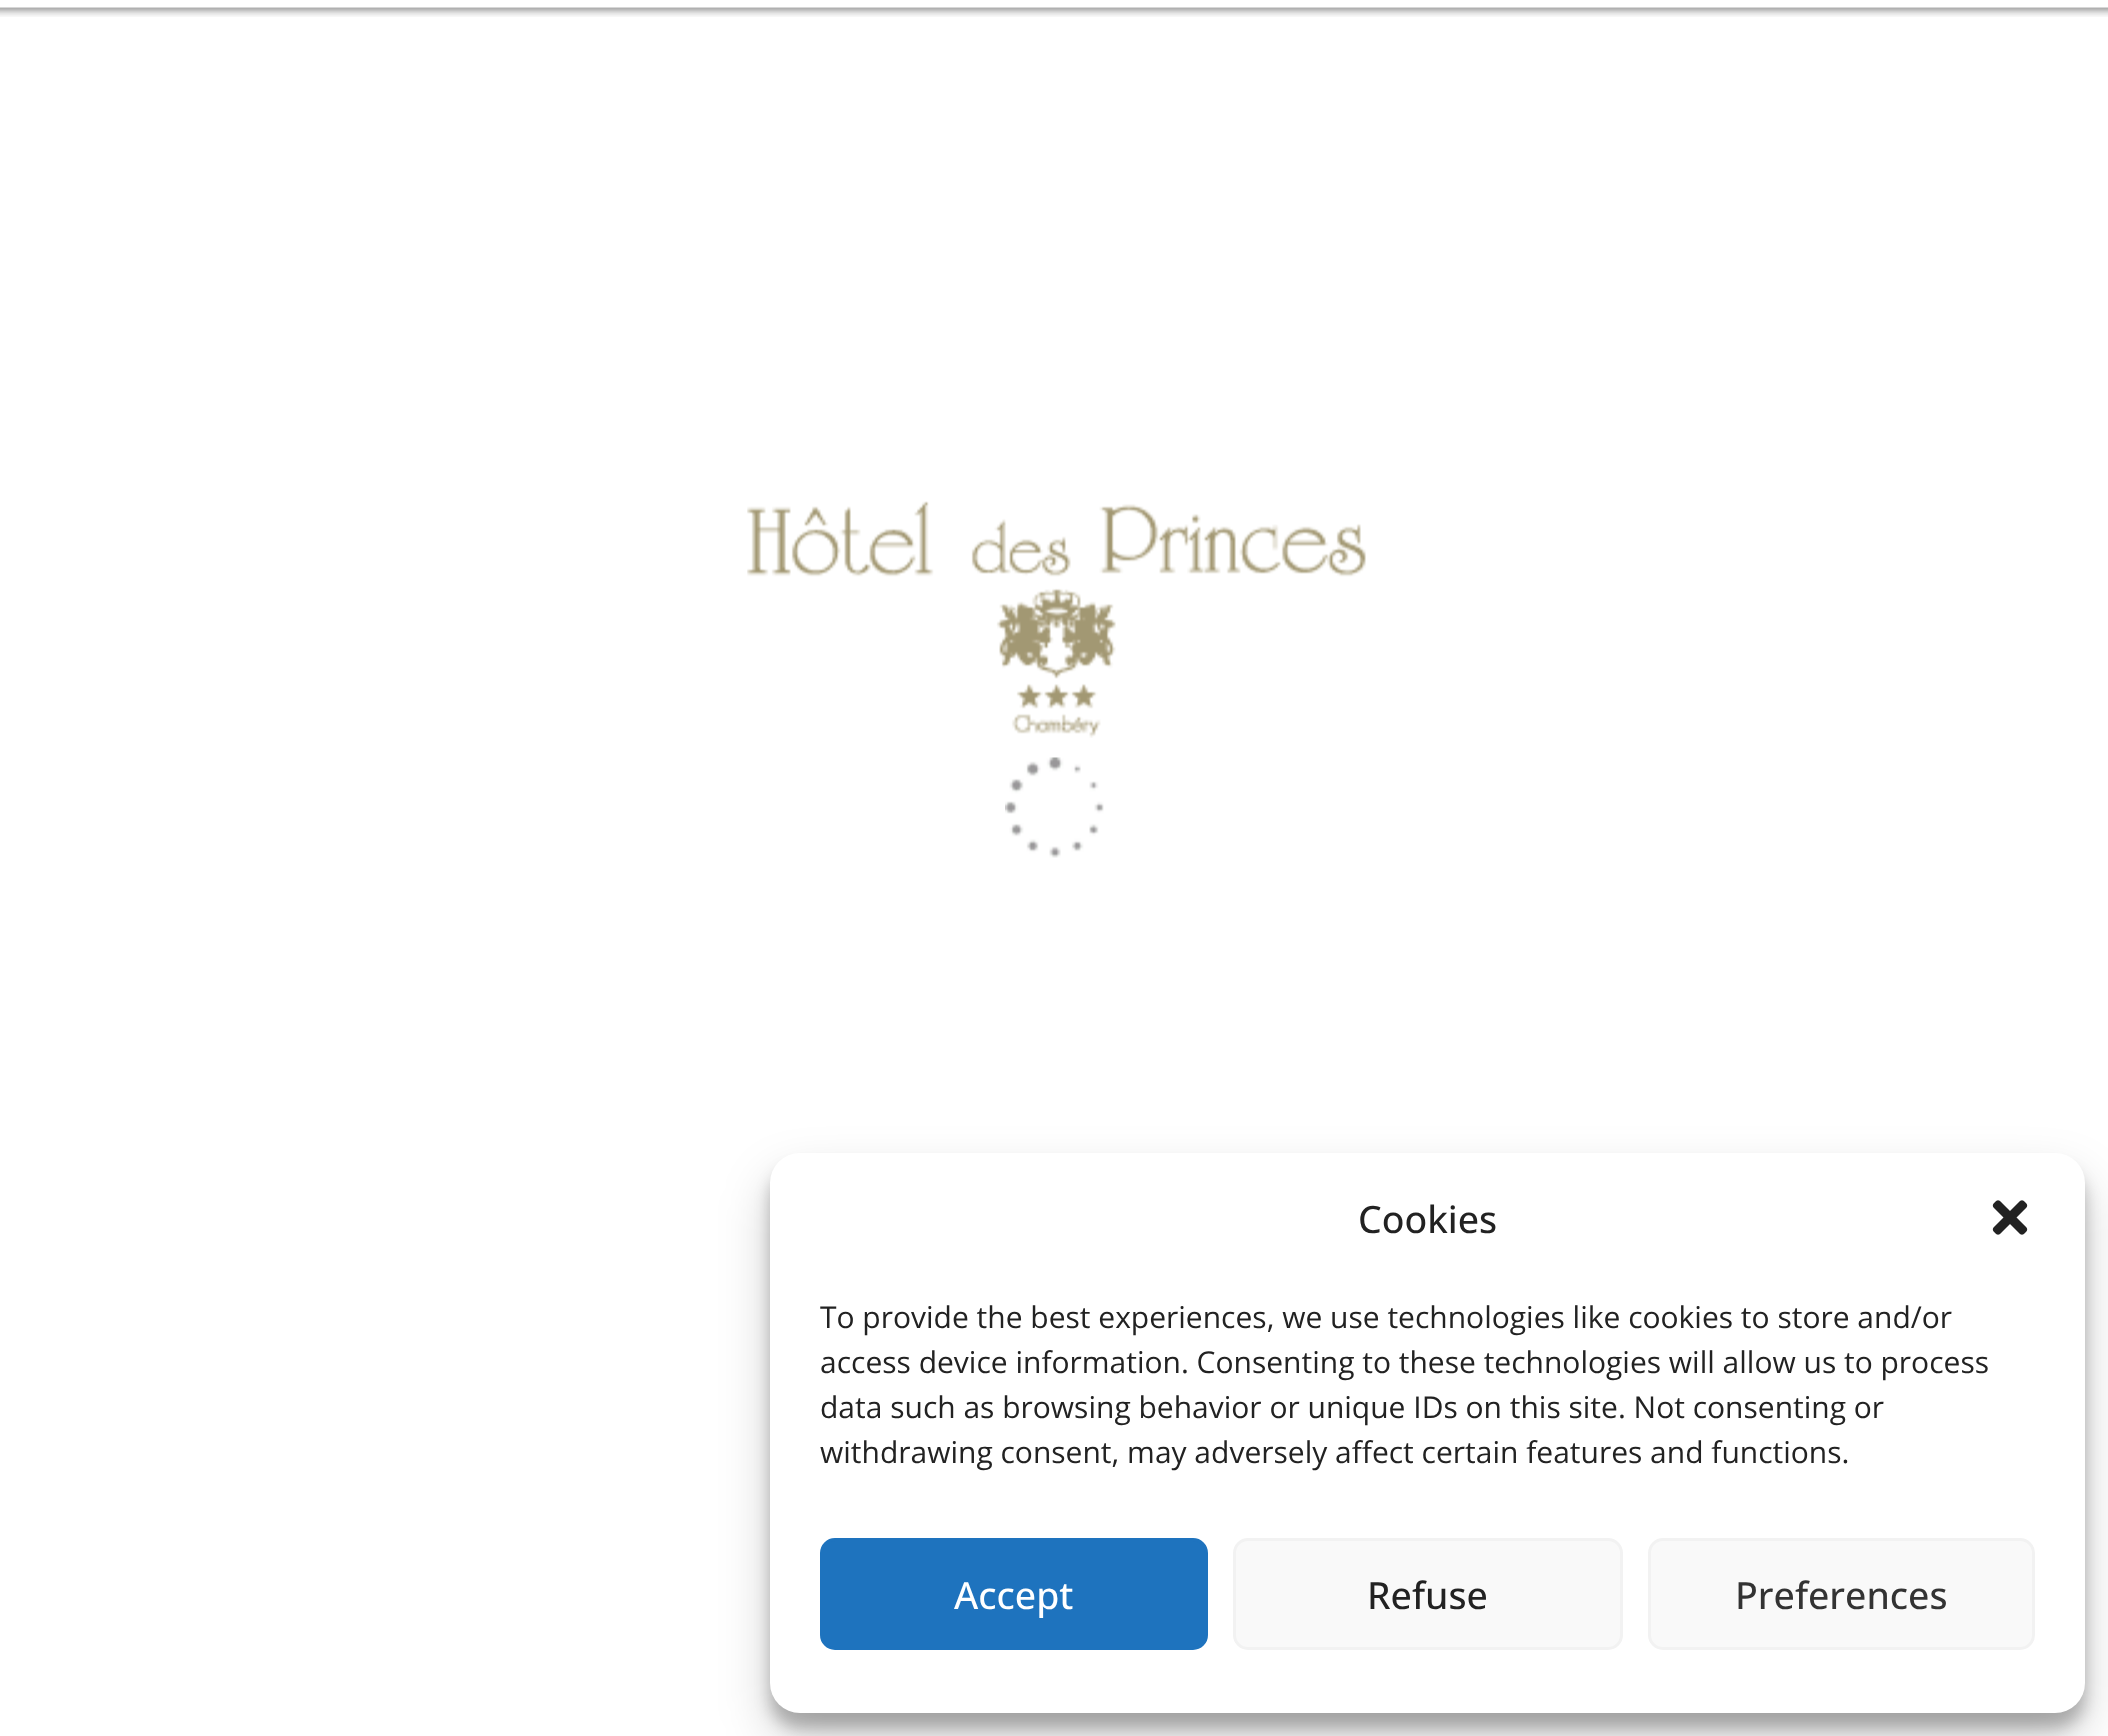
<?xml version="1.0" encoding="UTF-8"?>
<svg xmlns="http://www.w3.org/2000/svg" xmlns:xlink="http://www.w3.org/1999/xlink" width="2108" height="1736">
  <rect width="100%" height="100%" fill="#ffffff" />
  <image x="0" y="7" width="2108" height="10" xlink:href="image1.png" />
  <image x="1005" y="757" width="99" height="101" xlink:href="image2.png" />
  <image x="747" y="501" width="619" height="237" xlink:href="image3.png" />
  <rect x="770" y="1168" width="1315" height="560" rx="30" fill="#000000" fill-opacity="0.23" filter="blur(7.5px)" />
  <rect x="770" y="1178" width="1315" height="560" rx="30" fill="#000000" fill-opacity="0.19" filter="blur(25px)" />
  <rect x="770" y="1153" width="1315" height="560" rx="30" fill="#ffffff" />
  <image x="1992" y="1200" width="36" height="35" xlink:href="image4.png" />
  <rect x="821.5" y="1539.5" width="385" height="109" rx="13.5" fill="#1e73be" stroke="#1e73be" stroke-width="3" />
  <rect x="1234.5" y="1539.5" width="387" height="109" rx="13.5" fill="#f9f9f9" stroke="#f2f2f2" stroke-width="3" />
  <rect x="1649.5" y="1539.5" width="384" height="109" rx="13.5" fill="#f9f9f9" stroke="#f2f2f2" stroke-width="3" />
  <text x="1358" y="1233" style="font-family: Open Sans; font-size: 37.5px; font-weight: 500; fill: #222222">Cookies</text>
  <text x="820" y="1328" style="font-family: Open Sans; font-size: 30px; fill: #222222">To provide the best experiences, we use technologies like cookies to store and/or</text>
  <text x="820" y="1373" style="font-family: Open Sans; font-size: 30px; fill: #222222">access device information. Consenting to these technologies will allow us to process</text>
  <text x="820" y="1418" style="font-family: Open Sans; font-size: 30px; fill: #222222">data such as browsing behavior or unique IDs on this site. Not consenting or</text>
  <text x="820" y="1463" style="font-family: Open Sans; font-size: 30px; fill: #222222">withdrawing consent, may adversely affect certain features and functions.</text>
  <text x="954" y="1609" style="font-family: Open Sans; font-size: 37.5px; font-weight: 500; fill: #ffffff">Accept</text>
  <text x="1367" y="1609" style="font-family: Open Sans; font-size: 37.5px; font-weight: 500; fill: #222222">Refuse</text>
  <text x="1735" y="1609" style="font-family: Open Sans; font-size: 37.5px; font-weight: 500; fill: #333333">Preferences</text>
</svg>
